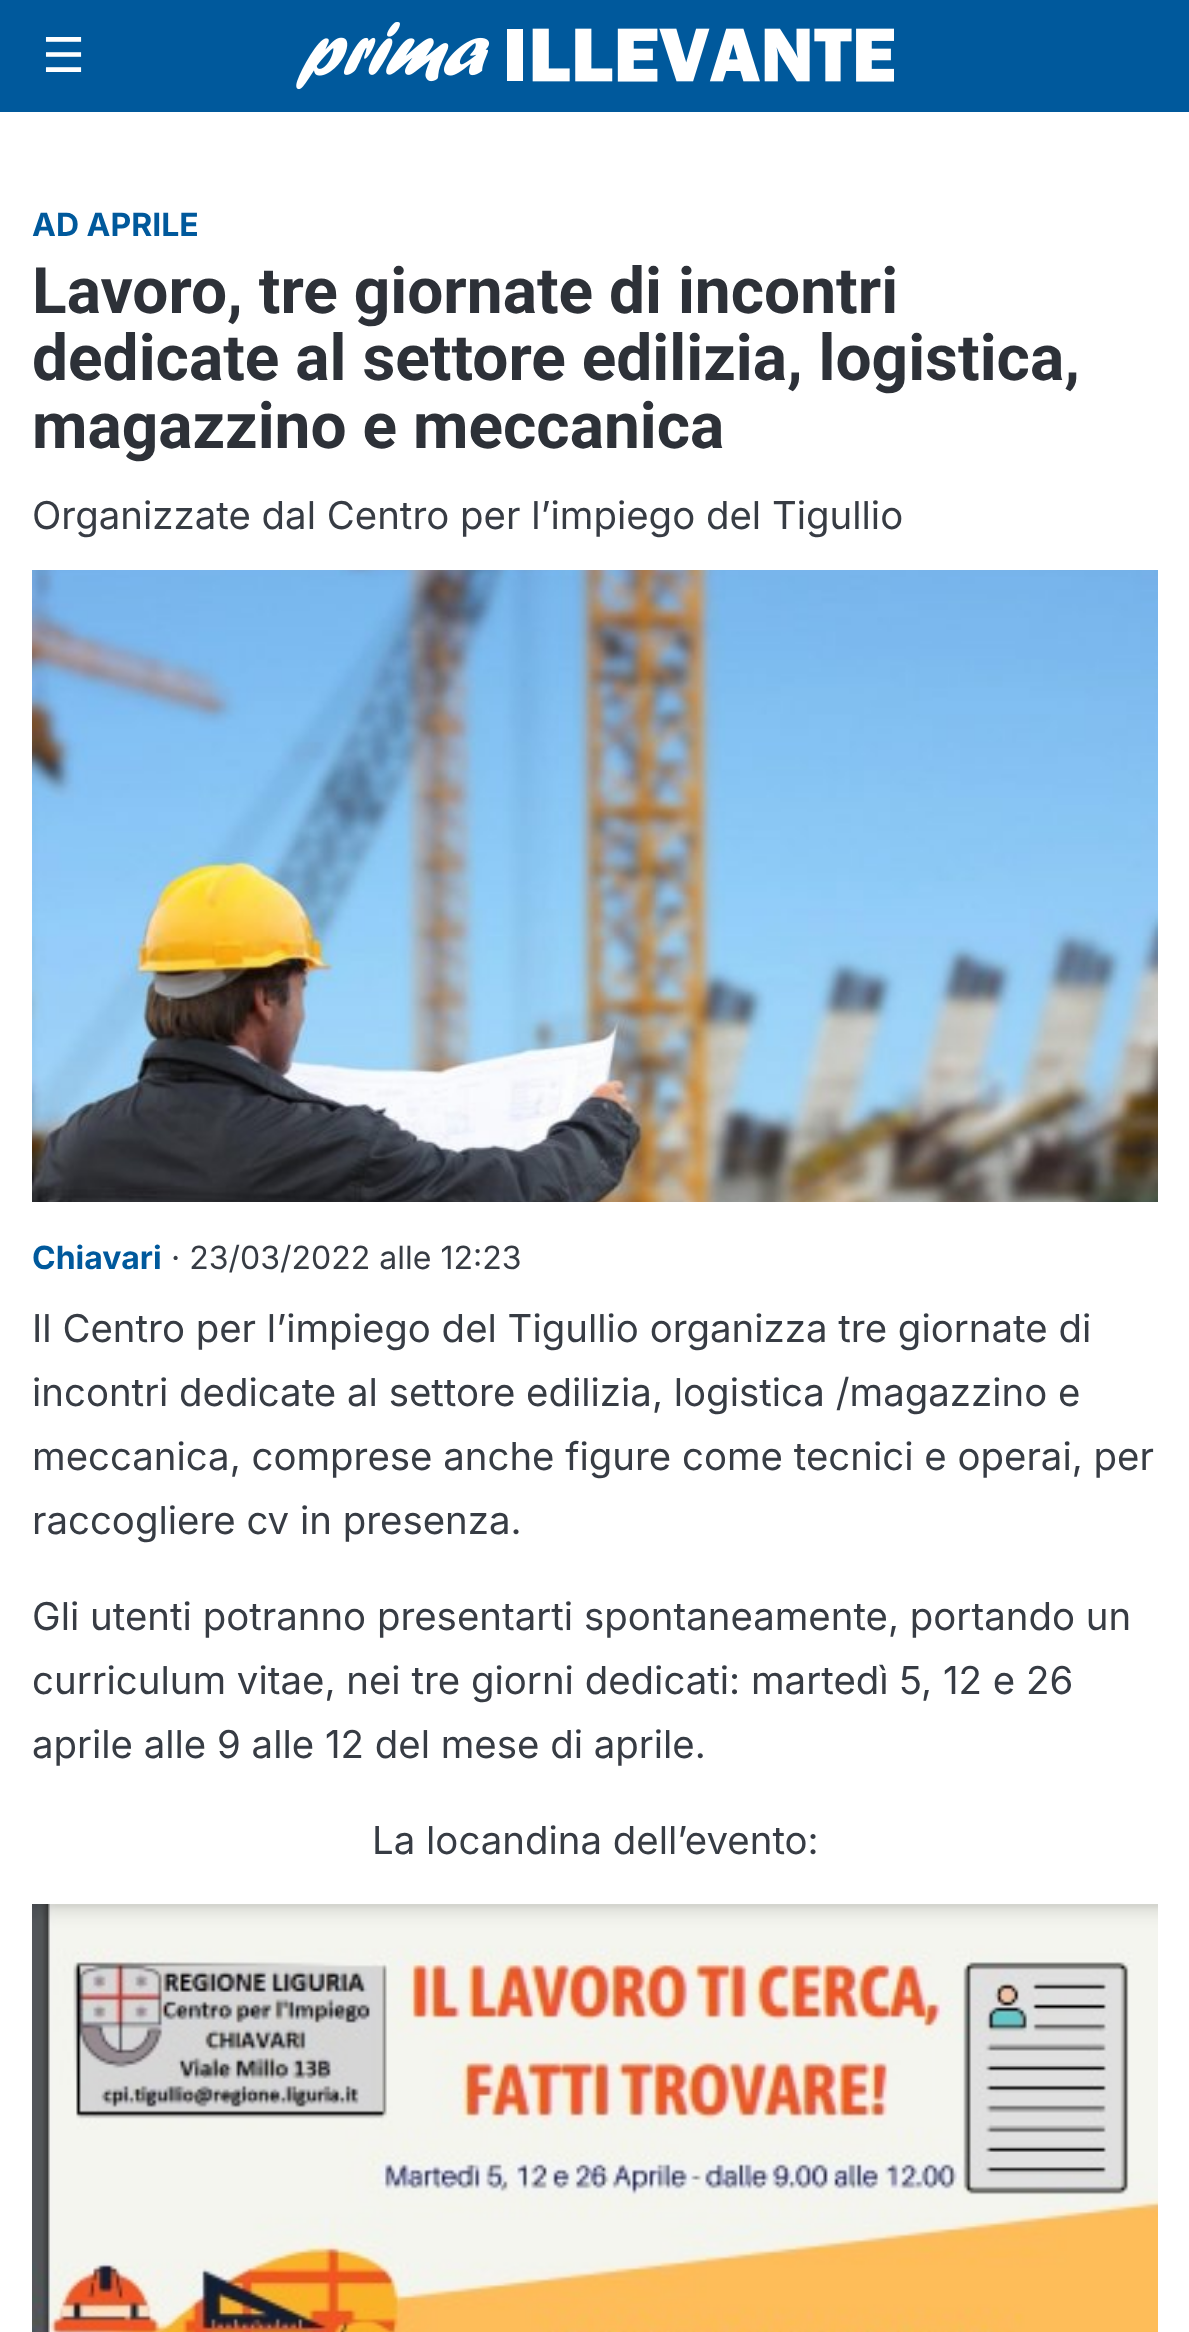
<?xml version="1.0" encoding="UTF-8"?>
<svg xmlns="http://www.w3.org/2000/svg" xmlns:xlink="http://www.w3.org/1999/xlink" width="1189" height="2332">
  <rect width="100%" height="100%" fill="#ffffff" />
  <rect width="1189" height="112" fill="#00599c" />
  <image x="296" y="22" width="598" height="68" xlink:href="image1.png" />
  <image x="32" y="570" width="1126" height="632" xlink:href="image2.png" />
  <image x="32" y="1904" width="1126" height="428" xlink:href="image3.png" />
  <text x="42" y="72" style="font-family: DejaVu Sans; font-size: 48px; fill: #ffffff">☰</text>
  <text x="32" y="236" style="font-family: Inter; font-size: 32px; font-weight: bold; fill: #00599c">AD APRILE</text>
  <text x="32" y="313" style="font-family: Roboto; font-size: 64px; font-weight: bold; fill: #2d3138">Lavoro, tre giornate di incontri</text>
  <text x="32" y="380" style="font-family: Roboto; font-size: 64px; font-weight: bold; fill: #2d3138">dedicate al settore edilizia, logistica,</text>
  <text x="32" y="448" style="font-family: Roboto; font-size: 64px; font-weight: bold; fill: #2d3138">magazzino e meccanica</text>
  <text x="32" y="529" style="font-family: Inter; font-size: 38.4px; fill: #373c44">Organizzate dal Centro per l’impiego del Tigullio</text>
  <text x="32" y="1269" style="font-family: Inter; font-size: 32px; font-weight: bold; fill: #00599c">Chiavari</text>
  <text x="171" y="1269" style="font-family: Inter; font-size: 32px; fill: #373c44">· 23/03/2022 alle 12:23</text>
  <text x="32" y="1342" style="font-family: Inter; font-size: 38.4px; fill: #373c44">Il Centro per l’impiego del Tigullio organizza tre giornate di</text>
  <text x="32" y="1406" style="font-family: Inter; font-size: 38.4px; fill: #373c44">incontri dedicate al settore edilizia, logistica /magazzino e</text>
  <text x="32" y="1470" style="font-family: Inter; font-size: 38.4px; fill: #373c44">meccanica, comprese anche figure come tecnici e operai, per</text>
  <text x="32" y="1534" style="font-family: Inter; font-size: 38.4px; fill: #373c44">raccogliere cv in presenza.</text>
  <text x="32" y="1630" style="font-family: Inter; font-size: 38.4px; fill: #373c44">Gli utenti potranno presentarti spontaneamente, portando un</text>
  <text x="32" y="1694" style="font-family: Inter; font-size: 38.4px; fill: #373c44">curriculum vitae, nei tre giorni dedicati: martedì 5, 12 e 26</text>
  <text x="32" y="1758" style="font-family: Inter; font-size: 38.4px; fill: #373c44">aprile alle 9 alle 12 del mese di aprile.</text>
  <text x="372" y="1854" style="font-family: Inter; font-size: 38.4px; fill: #373c44">La locandina dell’evento:</text>
</svg>
